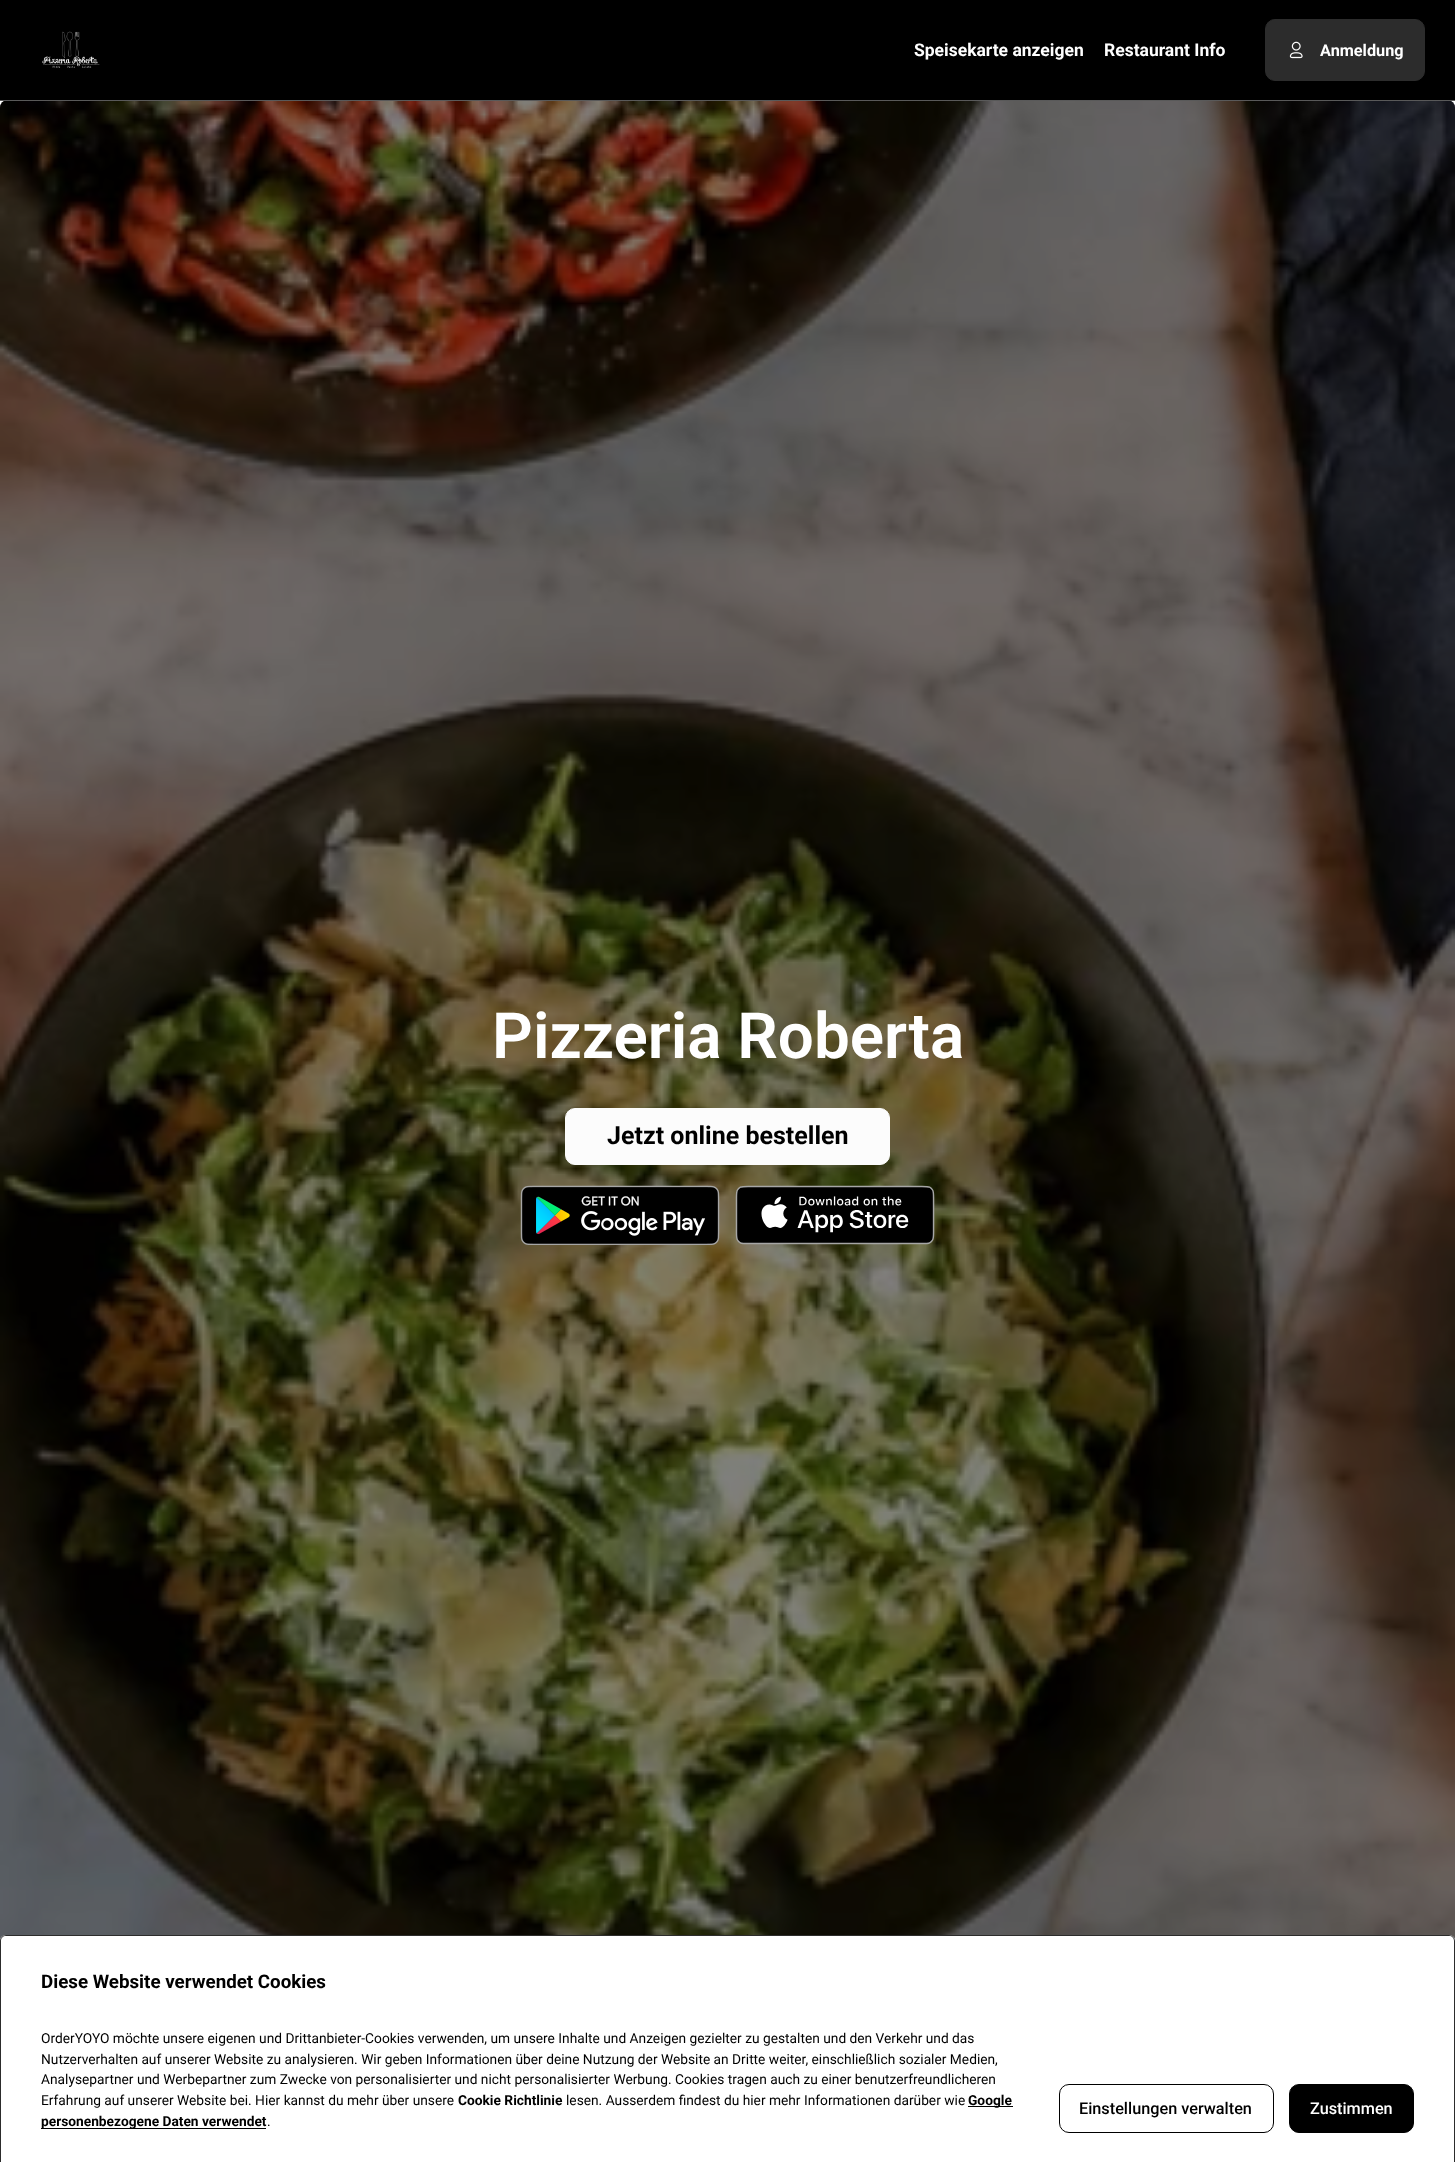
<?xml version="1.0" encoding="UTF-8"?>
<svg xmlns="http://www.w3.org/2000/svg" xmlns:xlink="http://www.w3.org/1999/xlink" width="1455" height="2162">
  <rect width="100%" height="100%" fill="#ffffff" />
  <rect width="1455" height="100" fill="#000000" />
  <image x="0" y="101" width="1455" height="1840" xlink:href="image3.png" />
  <rect y="100" width="1455" height="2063" rx="8" fill="#000000" fill-opacity="0.5" />
  <rect y="100" width="1455" height="1" fill="#595959" />
  <image x="42" y="31" width="58" height="37" xlink:href="image1.png" />
  <rect x="1265.5" y="19.5" width="159" height="61" rx="9.5" fill="#2c2c2c" stroke="#2c2c2c" />
  <image x="1289" y="41" width="14" height="18" xlink:href="image2.png" />
  <rect x="565.5" y="1108.5" width="324" height="56" rx="9.5" fill="#fcfcfc" stroke="#fcfcfc" />
  <image x="520" y="1185" width="200" height="60" xlink:href="image4.png" />
  <image x="735" y="1185" width="200" height="60" xlink:href="image5.png" />
  <path d="M 6 1935 h 1443 c 3.5 0 6 2.5 6 6 v 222 h -1455 v -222 c 0 -3.5 2.5 -6 6 -6 z" fill="#ffffff" />
  <path d="M 6 1935 h 1443 c 3 0 6 3 6 6 v 221 h -1455 v -221 c 0 -3 3 -6 6 -6 z m 0 1 h 1443 c 3 0 5 2 5 5 v 221 h -1453 v -221 c 0 -3 2 -5 5 -5 z" fill="#2c2c2c" fill-rule="evenodd" />
  <rect x="968" y="2106" width="45" height="1" fill="#000000" />
  <rect x="41" y="2128" width="225" height="1" fill="#000000" />
  <rect x="1059.5" y="2084.5" width="214" height="48" rx="9.5" fill="none" stroke="#000000" />
  <rect x="1289.5" y="2084.5" width="124" height="48" rx="9.5" fill="#000000" stroke="#000000" />
  <text x="914" y="56" style="font-family: Roboto; font-size: 17.5px; font-weight: bold; fill: #ffffff">Speisekarte anzeigen</text>
  <text x="1104" y="56" style="font-family: Roboto; font-size: 17.5px; font-weight: bold; fill: #ffffff">Restaurant Info</text>
  <text x="1320" y="56" style="font-family: Roboto; font-size: 16.25px; font-weight: bold; fill: #ffffff">Anmeldung</text>
  <text x="492" y="1058" style="font-family: Roboto; font-size: 63.75px; font-weight: 600; fill: #ffffff">Pizzeria Roberta</text>
  <text x="607" y="1144" style="font-family: Roboto; font-size: 25px; font-weight: bold; fill: #000000">Jetzt online bestellen</text>
  <text x="41" y="1988" style="font-family: Roboto; font-size: 18.75px; font-weight: bold; fill: #000000">Diese Website verwendet Cookies</text>
  <text x="41" y="2043" style="font-family: Roboto; font-size: 13.75px; fill: #000000">OrderYOYO möchte unsere eigenen und Drittanbieter-Cookies verwenden, um unsere Inhalte und Anzeigen gezielter zu gestalten und den Verkehr und das</text>
  <text x="41" y="2064" style="font-family: Roboto; font-size: 13.75px; fill: #000000">Nutzerverhalten auf unserer Website zu analysieren. Wir geben Informationen über deine Nutzung der Website an Dritte weiter, einschließlich sozialer Medien,</text>
  <text x="41" y="2084" style="font-family: Roboto; font-size: 13.75px; fill: #000000">Analysepartner und Werbepartner zum Zwecke von personalisierter und nicht personalisierter Werbung. Cookies tragen auch zu einer benutzerfreundlicheren</text>
  <text x="41" y="2105" style="font-family: Roboto; font-size: 13.75px; fill: #000000">Erfahrung auf unserer Website bei. Hier kannst du mehr über unsere</text>
  <text x="458" y="2105" style="font-family: Roboto; font-size: 13.75px; font-weight: bold; fill: #000000">Cookie Richtlinie</text>
  <text x="566" y="2105" style="font-family: Roboto; font-size: 13.75px; fill: #000000">lesen. Ausserdem findest du hier mehr Informationen darüber wie</text>
  <text x="968" y="2105" style="font-family: Roboto; font-size: 13.75px; font-weight: bold; fill: #000000">Google</text>
  <text x="41" y="2126" style="font-family: Roboto; font-size: 13.75px; font-weight: bold; fill: #000000">personenbezogene Daten verwendet</text>
  <text x="267" y="2126" style="font-family: Roboto; font-size: 13.75px; fill: #000000">.</text>
  <text x="1079" y="2114" style="font-family: Roboto; font-size: 16.25px; font-weight: 500; fill: #000000">Einstellungen verwalten</text>
  <text x="1310" y="2114" style="font-family: Roboto; font-size: 16.25px; font-weight: 500; fill: #ffffff">Zustimmen</text>
</svg>
